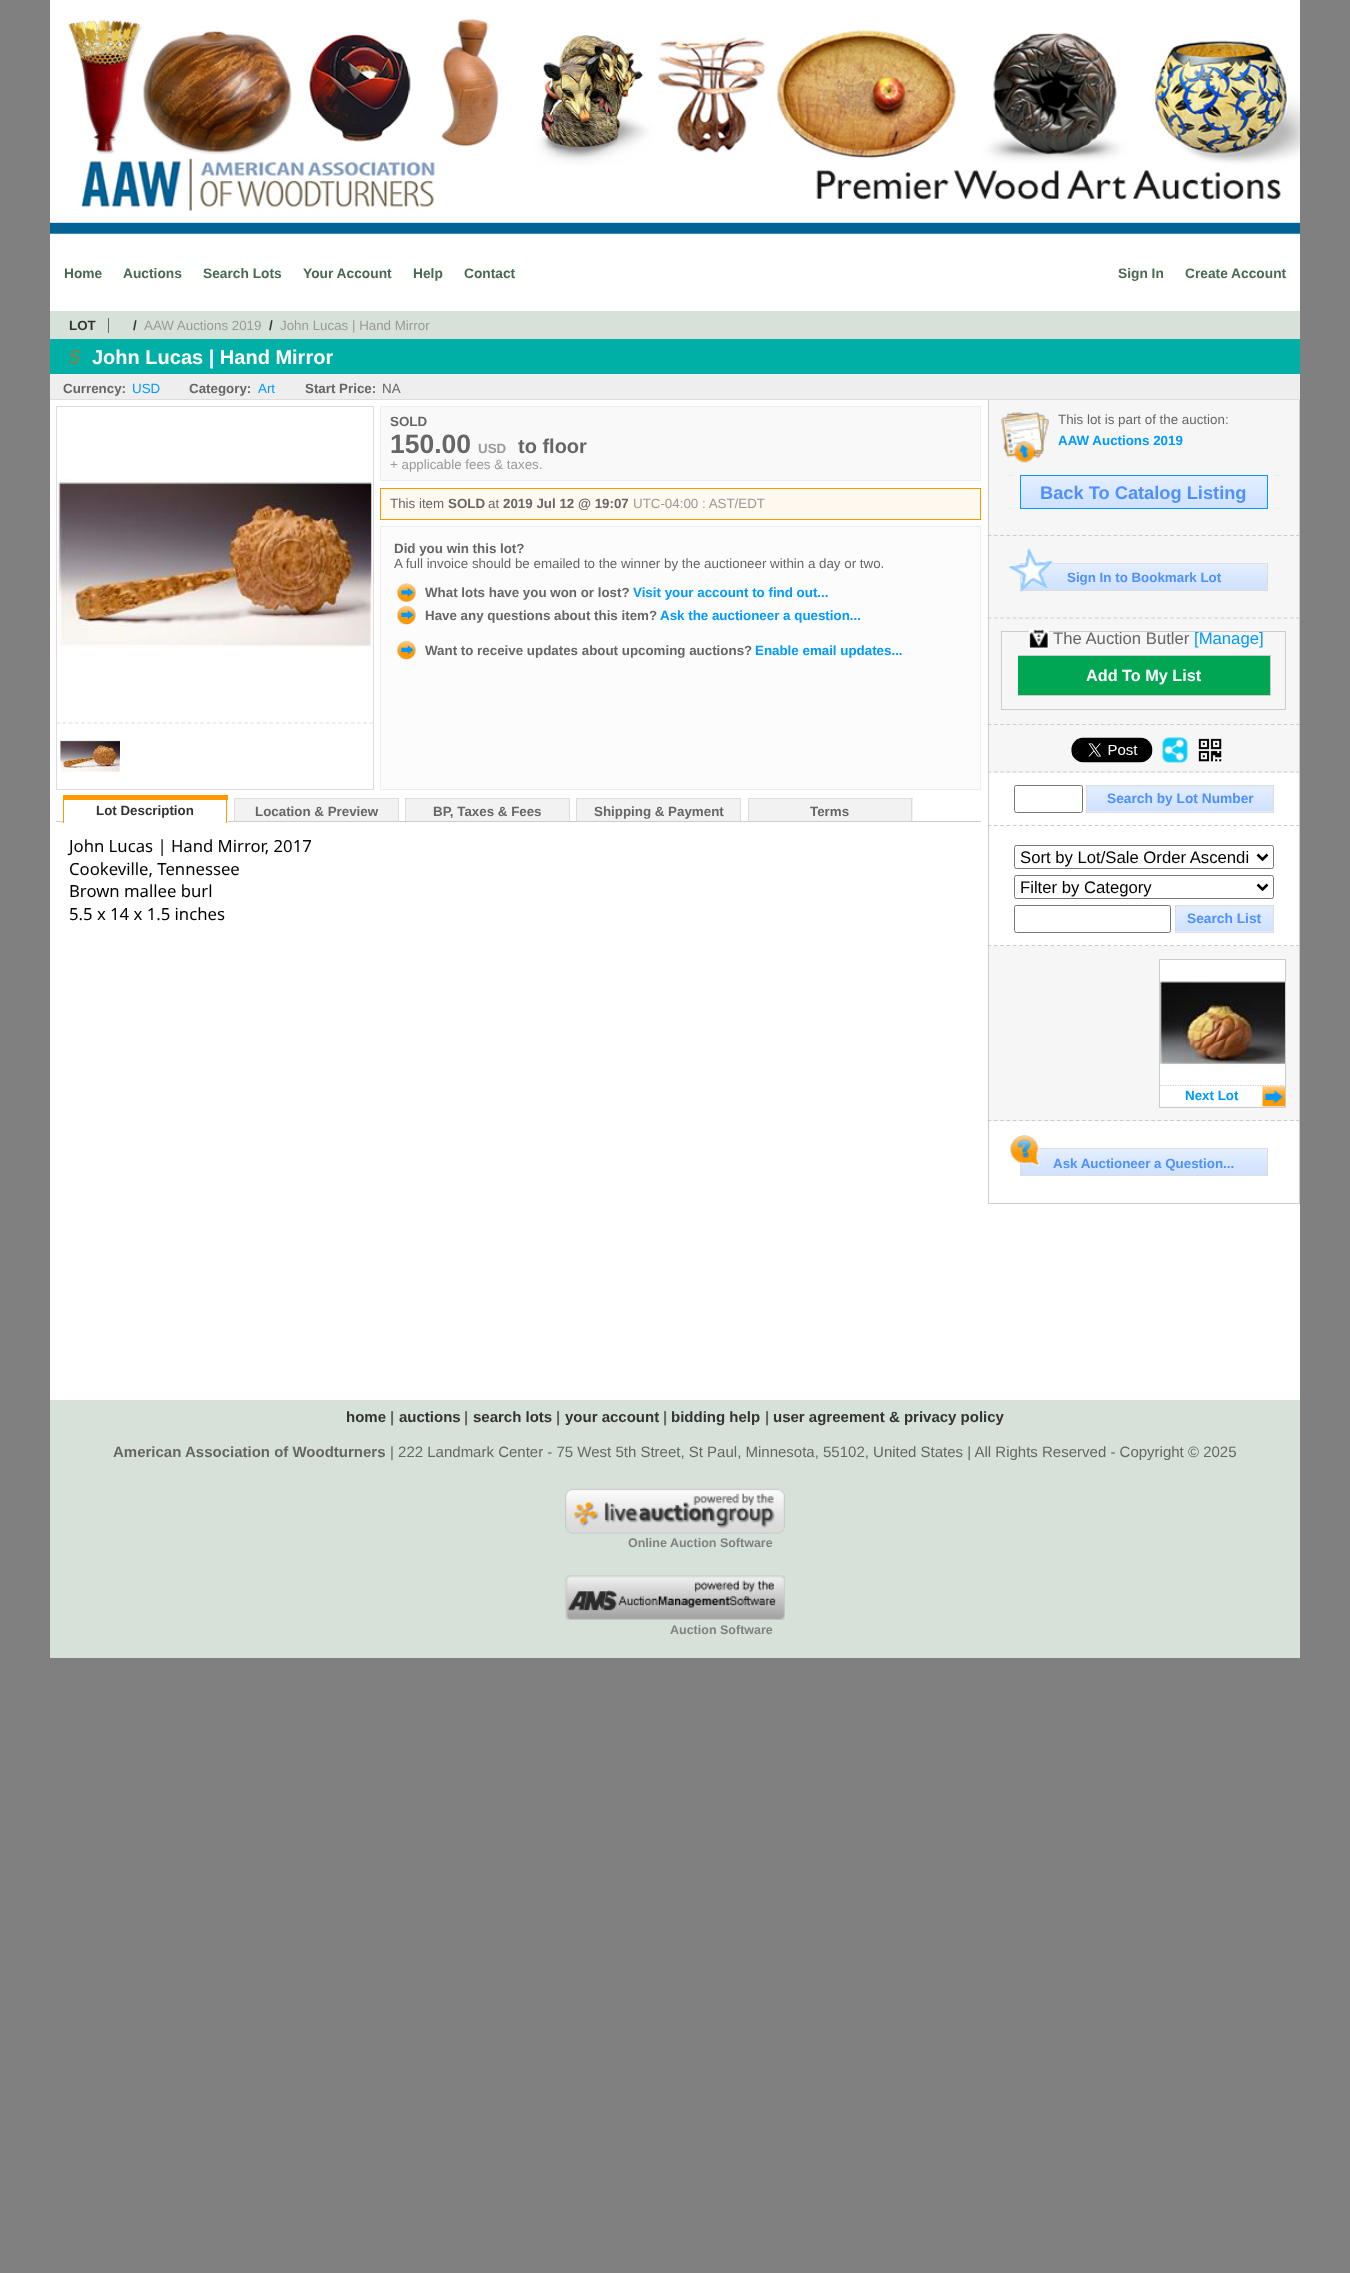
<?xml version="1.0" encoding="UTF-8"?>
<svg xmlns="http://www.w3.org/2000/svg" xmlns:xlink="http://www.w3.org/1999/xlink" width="1350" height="2273">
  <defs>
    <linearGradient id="g1" gradientUnits="userSpaceOnUse" x1="1144" y1="476" x2="1144" y2="508"><stop offset="0" stop-color="#e4eeff" /><stop offset="1" stop-color="#cfe1ff" /></linearGradient>
    <linearGradient id="g2" gradientUnits="userSpaceOnUse" x1="1144" y1="564" x2="1144" y2="590"><stop offset="0" stop-color="#e4eeff" /><stop offset="1" stop-color="#cfe1ff" /></linearGradient>
    <linearGradient id="g3" gradientUnits="userSpaceOnUse" x1="1180" y1="786" x2="1180" y2="811"><stop offset="0" stop-color="#e4eeff" /><stop offset="1" stop-color="#cfe1ff" /></linearGradient>
    <linearGradient id="g4" gradientUnits="userSpaceOnUse" x1="1180" y1="811" x2="1180" y2="836"><stop offset="0" stop-color="#e4eeff" /><stop offset="1" stop-color="#cfe1ff" /></linearGradient>
    <linearGradient id="g5" gradientUnits="userSpaceOnUse" x1="1224" y1="906" x2="1224" y2="931"><stop offset="0" stop-color="#e4eeff" /><stop offset="1" stop-color="#cfe1ff" /></linearGradient>
    <linearGradient id="g6" gradientUnits="userSpaceOnUse" x1="1224" y1="931" x2="1224" y2="956"><stop offset="0" stop-color="#e4eeff" /><stop offset="1" stop-color="#cfe1ff" /></linearGradient>
    <linearGradient id="g7" gradientUnits="userSpaceOnUse" x1="1144" y1="1149" x2="1144" y2="1175"><stop offset="0" stop-color="#e4eeff" /><stop offset="1" stop-color="#cfe1ff" /></linearGradient>
  </defs>
  <rect width="100%" height="100%" fill="#808080" />
  <rect x="50" width="1250" height="311" fill="#ffffff" />
  <image x="50" y="18" width="1250" height="216" xlink:href="image1.png" />
  <rect x="50" y="400" width="1250" height="1000" fill="#ffffff" />
  <rect x="50" y="311" width="1250" height="28" fill="#d6e2d9" />
  <rect x="108" y="318" width="1" height="15" fill="#666666" />
  <rect x="50" y="339" width="1250" height="35" fill="#00b0a6" />
  <rect x="50" y="374" width="1250" height="25" fill="#eeeeee" />
  <rect x="50" y="399" width="1250" height="1" fill="#dddddd" />
  <rect x="56" y="406" width="318" height="1" fill="#dddddd" />
  <rect x="373" y="406" width="1" height="317" fill="#dddddd" />
  <rect x="56" y="406" width="1" height="317" fill="#dddddd" />
  <image x="58" y="479" width="314" height="170" xlink:href="image2.png" />
  <path d="M 56 723 h 318" fill="none" stroke="#dddddd" stroke-width="1.2" stroke-dasharray="3.75 2.52" />
  <rect x="373" y="723" width="1" height="67" fill="#dddddd" />
  <rect x="56" y="789" width="318" height="1" fill="#dddddd" />
  <rect x="56" y="723" width="1" height="67" fill="#dddddd" />
  <image x="60" y="740" width="60" height="33" xlink:href="image3.png" />
  <rect x="380.5" y="406.5" width="600" height="74" fill="#f9f9f9" stroke="#eeeeee" />
  <rect x="380.5" y="488.5" width="600" height="31" fill="#fff9f0" stroke="#ff9900" />
  <rect x="380.5" y="526.5" width="600" height="263" fill="#fcfcfc" stroke="#eeeeee" />
  <image x="397" y="583" width="19" height="20" xlink:href="image4.png" />
  <image x="397" y="605" width="19" height="20" xlink:href="image5.png" />
  <image x="397" y="640" width="19" height="20" xlink:href="image5.png" />
  <rect x="56" y="821" width="925" height="1" fill="#cccccc" />
  <rect x="64" y="821" width="164" height="1" fill="#ffffff" />
  <rect x="63" y="795" width="165" height="5" fill="#ff9900" />
  <rect x="226" y="795" width="1" height="28" fill="#ff9900" />
  <rect x="63" y="795" width="1" height="28" fill="#ff9900" />
  <rect x="235" y="799" width="163" height="22" fill="#f2f2f2" />
  <rect x="234" y="798" width="165" height="1" fill="#dddddd" />
  <rect x="398" y="798" width="1" height="23" fill="#dddddd" />
  <rect x="234" y="798" width="1" height="23" fill="#dddddd" />
  <rect x="406" y="799" width="163" height="22" fill="#f2f2f2" />
  <rect x="405" y="798" width="165" height="1" fill="#dddddd" />
  <rect x="569" y="798" width="1" height="23" fill="#dddddd" />
  <rect x="405" y="798" width="1" height="23" fill="#dddddd" />
  <rect x="577" y="799" width="163" height="22" fill="#f2f2f2" />
  <rect x="576" y="798" width="165" height="1" fill="#dddddd" />
  <rect x="740" y="798" width="1" height="23" fill="#dddddd" />
  <rect x="576" y="798" width="1" height="23" fill="#dddddd" />
  <rect x="749" y="799" width="164" height="22" fill="#f2f2f2" />
  <rect x="748" y="798" width="165" height="1" fill="#dddddd" />
  <rect x="911" y="798" width="1" height="23" fill="#dddddd" />
  <rect x="748" y="798" width="1" height="23" fill="#dddddd" />
  <rect x="989" y="400" width="310" height="136" fill="#f6f6f6" />
  <rect x="1299" y="400" width="1" height="136" fill="#cccccc" />
  <path d="M 987.5 535.5 h 312.5" fill="none" stroke="#cccccc" stroke-width="1.2" stroke-dasharray="3.75 2.55" />
  <rect x="988" y="400" width="1" height="136" fill="#cccccc" />
  <image x="1001" y="412" width="48" height="51" xlink:href="image6.png" />
  <rect x="1021" y="476" width="246" height="32" fill="url(#g1)" />
  <rect x="1020.5" y="475.5" width="247" height="33" fill="none" stroke="#0099ff" />
  <rect x="989" y="536" width="310" height="189" fill="#f6f6f6" />
  <rect x="1299" y="536" width="1" height="189" fill="#cccccc" />
  <path d="M 987.5 618 h 312.5" fill="none" stroke="#cccccc" stroke-width="1.2" stroke-dasharray="3.75 2.55" />
  <rect x="988" y="536" width="1" height="83" fill="#cccccc" />
  <rect x="1021" y="564" width="246" height="26" fill="url(#g2)" />
  <rect x="1020.5" y="563.5" width="247" height="27" fill="none" stroke="#dddddd" />
  <image x="1008" y="547" width="45" height="45" xlink:href="image7.png" />
  <path d="M 987.5 724.5 h 312.5" fill="none" stroke="#cccccc" stroke-width="1.2" stroke-dasharray="3.75 2.55" />
  <rect x="988" y="619" width="1" height="106" fill="#cccccc" />
  <rect x="1001.5" y="631.5" width="284" height="78" fill="none" stroke="#cccccc" />
  <image x="1028" y="629" width="21" height="20" xlink:href="image8.png" />
  <rect x="1018" y="656" width="252" height="39" fill="#00a651" />
  <rect x="1018" y="655" width="253" height="1" fill="#cccccc" />
  <rect x="1270" y="655" width="1" height="41" fill="#cccccc" />
  <rect x="1018" y="695" width="253" height="1" fill="#cccccc" />
  <rect x="989" y="725" width="310" height="48" fill="#f6f6f6" />
  <rect x="1299" y="725" width="1" height="101" fill="#cccccc" />
  <path d="M 987.5 772 h 312.5" fill="none" stroke="#cccccc" stroke-width="1.2" stroke-dasharray="3.75 2.55" />
  <rect x="988" y="725" width="1" height="48" fill="#cccccc" />
  <image x="1071" y="737" width="82" height="26" xlink:href="image9.png" />
  <image x="1162" y="737" width="26" height="26" xlink:href="image10.png" />
  <image x="1197" y="737" width="26" height="26" xlink:href="image11.png" />
  <path d="M 987.5 825.5 h 312.5" fill="none" stroke="#cccccc" stroke-width="1.2" stroke-dasharray="3.75 2.55" />
  <rect x="988" y="773" width="1" height="53" fill="#cccccc" />
  <rect x="1014.5" y="785.5" width="68" height="27" rx="2" fill="none" stroke="#767676" />
  <rect x="1087" y="786" width="186" height="25" fill="url(#g3)" />
  <rect x="1086" y="811" width="188" height="1" fill="url(#g4)" />
  <rect x="1086.5" y="785.5" width="187" height="27" fill="none" stroke="#dddddd" />
  <rect x="1299" y="826" width="1" height="120" fill="#cccccc" />
  <path d="M 987.5 945.5 h 312.5" fill="none" stroke="#cccccc" stroke-width="1.2" stroke-dasharray="3.75 2.55" />
  <rect x="988" y="826" width="1" height="120" fill="#cccccc" />
  <rect x="1014.5" y="845.5" width="259" height="23" rx="2" fill="none" stroke="#767676" />
  <path d="M 1257.5 854.5 l 5 5 l 5 -5" fill="none" stroke="#000000" stroke-width="2.5" />
  <rect x="1014.5" y="875.5" width="259" height="23" rx="2" fill="none" stroke="#767676" />
  <path d="M 1257.5 884.5 l 5 5 l 5 -5" fill="none" stroke="#000000" stroke-width="2.5" />
  <rect x="1014.5" y="905.5" width="156" height="27" rx="2" fill="none" stroke="#767676" />
  <rect x="1176" y="906" width="97" height="25" fill="url(#g5)" />
  <rect x="1175" y="931" width="99" height="1" fill="url(#g6)" />
  <rect x="1175.5" y="905.5" width="98" height="27" fill="none" stroke="#dddddd" />
  <rect x="989" y="946" width="310" height="175" fill="#f6f6f6" />
  <rect x="1299" y="946" width="1" height="175" fill="#cccccc" />
  <path d="M 987.5 1120.5 h 312.5" fill="none" stroke="#cccccc" stroke-width="1.2" stroke-dasharray="3.75 2.55" />
  <rect x="988" y="946" width="1" height="175" fill="#cccccc" />
  <rect x="1159.5" y="959.5" width="126" height="148" fill="none" stroke="#cccccc" />
  <rect x="1160" y="1085" width="125" height="21" fill="#ffffff" />
  <path d="M 1160 1085.5 h 125" fill="none" stroke="#cccccc" stroke-width="1.2" stroke-dasharray="1.25 1.25" />
  <image x="1160" y="960" width="125" height="125" xlink:href="image12.png" />
  <image x="1262" y="1086" width="23" height="21" xlink:href="image13.png" />
  <rect x="1299" y="1121" width="1" height="83" fill="#cccccc" />
  <rect x="988" y="1203" width="312" height="1" fill="#cccccc" />
  <rect x="988" y="1121" width="1" height="83" fill="#cccccc" />
  <rect x="1021" y="1149" width="246" height="26" fill="url(#g7)" />
  <rect x="1020.5" y="1148.5" width="247" height="27" fill="none" stroke="#dddddd" />
  <image x="1010" y="1135" width="30" height="31" xlink:href="image14.png" />
  <rect x="50" y="1400" width="1250" height="258" fill="#d6e2d9" />
  <image x="565" y="1488" width="220" height="46" xlink:href="image15.png" />
  <image x="565" y="1575" width="220" height="45" xlink:href="image16.png" />
  <text x="64" y="278" style="font-family: Liberation Sans; font-size: 13.75px; font-weight: bold; fill: #496952">Home</text>
  <text x="123" y="278" style="font-family: Liberation Sans; font-size: 13.75px; font-weight: bold; fill: #496952">Auctions</text>
  <text x="203" y="278" style="font-family: Liberation Sans; font-size: 13.75px; font-weight: bold; fill: #496952">Search Lots</text>
  <text x="303" y="278" style="font-family: Liberation Sans; font-size: 13.75px; font-weight: bold; fill: #496952">Your Account</text>
  <text x="413" y="278" style="font-family: Liberation Sans; font-size: 13.75px; font-weight: bold; fill: #496952">Help</text>
  <text x="464" y="278" style="font-family: Liberation Sans; font-size: 13.75px; font-weight: bold; fill: #496952">Contact</text>
  <text x="1118" y="278" style="font-family: Liberation Sans; font-size: 13.75px; font-weight: bold; fill: #496952">Sign In</text>
  <text x="1185" y="278" style="font-family: Liberation Sans; font-size: 13.75px; font-weight: bold; fill: #496952">Create Account</text>
  <text x="69" y="330" style="font-family: Liberation Sans; font-size: 13.35px; font-weight: bold; fill: #333333">LOT</text>
  <text x="133" y="330" style="font-family: Liberation Sans; font-size: 13.35px; font-weight: bold; fill: #333333">/</text>
  <text x="144" y="330" style="font-family: Liberation Sans; font-size: 13.35px; fill: #999999">AAW Auctions 2019</text>
  <text x="269" y="330" style="font-family: Liberation Sans; font-size: 13.35px; font-weight: bold; fill: #333333">/</text>
  <text x="280" y="330" style="font-family: Liberation Sans; font-size: 13.35px; fill: #999999">John Lucas | Hand Mirror</text>
  <text x="69" y="364" style="font-family: Liberation Sans; font-size: 20px; font-weight: bold; font-style: italic; fill: #698c5b">5</text>
  <text x="92" y="364" style="font-family: Liberation Sans; font-size: 20px; font-weight: bold; fill: #ffffff">John Lucas | Hand Mirror</text>
  <text x="63" y="393" style="font-family: Liberation Sans; font-size: 13.35px; font-weight: bold; fill: #666666">Currency:</text>
  <text x="132" y="393" style="font-family: Liberation Sans; font-size: 13.35px; fill: #0099ff">USD</text>
  <text x="189" y="393" style="font-family: Liberation Sans; font-size: 13.35px; font-weight: bold; fill: #666666">Category:</text>
  <text x="258" y="393" style="font-family: Liberation Sans; font-size: 13.35px; fill: #0099ff">Art</text>
  <text x="305" y="393" style="font-family: Liberation Sans; font-size: 13.35px; font-weight: bold; fill: #666666">Start Price:</text>
  <text x="382" y="393" style="font-family: Liberation Sans; font-size: 13.35px; fill: #666666">NA</text>
  <text x="390" y="426" style="font-family: Liberation Sans; font-size: 13.35px; font-weight: bold; fill: #666666">SOLD</text>
  <text x="390" y="453" style="font-family: Liberation Sans; font-size: 26.5px; font-weight: bold; fill: #666666">150.00</text>
  <text x="478" y="453" style="font-family: Liberation Sans; font-size: 13.35px; font-weight: bold; fill: #999999">USD</text>
  <text x="518" y="453" style="font-family: Liberation Sans; font-size: 20px; font-weight: bold; fill: #666666">to floor</text>
  <text x="390" y="469" style="font-family: Liberation Sans; font-size: 13.35px; fill: #999999">+ applicable fees &amp; taxes.</text>
  <text x="390" y="508" style="font-family: Liberation Sans; font-size: 13.35px; fill: #666666">This item</text>
  <text x="448" y="508" style="font-family: Liberation Sans; font-size: 13.35px; font-weight: bold; fill: #666666">SOLD</text>
  <text x="488" y="508" style="font-family: Liberation Sans; font-size: 13.35px; fill: #666666">at</text>
  <text x="503" y="508" style="font-family: Liberation Sans; font-size: 13.35px; font-weight: bold; fill: #666666">2019 Jul 12 @ 19:07</text>
  <text x="633" y="508" style="font-family: Liberation Sans; font-size: 13.35px; fill: #999999">UTC-04:00 : AST/EDT</text>
  <text x="394" y="553" style="font-family: Liberation Sans; font-size: 13.35px; font-weight: bold; fill: #666666">Did you win this lot?</text>
  <text x="394" y="568" style="font-family: Liberation Sans; font-size: 13.35px; fill: #666666">A full invoice should be emailed to the winner by the auctioneer within a day or two.</text>
  <text x="425" y="597" style="font-family: Liberation Sans; font-size: 13.35px; font-weight: bold; fill: #666666">What lots have you won or lost?</text>
  <text x="633" y="597" style="font-family: Liberation Sans; font-size: 13.35px; font-weight: bold; fill: #0099ff">Visit your account to find out...</text>
  <text x="425" y="620" style="font-family: Liberation Sans; font-size: 13.35px; font-weight: bold; fill: #666666">Have any questions about this item?</text>
  <text x="660" y="620" style="font-family: Liberation Sans; font-size: 13.35px; font-weight: bold; fill: #0099ff">Ask the auctioneer a question...</text>
  <text x="425" y="655" style="font-family: Liberation Sans; font-size: 13.35px; font-weight: bold; fill: #666666">Want to receive updates about upcoming auctions?</text>
  <text x="755" y="655" style="font-family: Liberation Sans; font-size: 13.35px; font-weight: bold; fill: #0099ff">Enable email updates...</text>
  <text x="96" y="815" style="font-family: Liberation Sans; font-size: 13.35px; font-weight: bold; fill: #333333">Lot Description</text>
  <text x="255" y="816" style="font-family: Liberation Sans; font-size: 13.35px; font-weight: bold; fill: #666666">Location &amp; Preview</text>
  <text x="433" y="816" style="font-family: Liberation Sans; font-size: 13.35px; font-weight: bold; fill: #666666">BP, Taxes &amp; Fees</text>
  <text x="594" y="816" style="font-family: Liberation Sans; font-size: 13.35px; font-weight: bold; fill: #666666">Shipping &amp; Payment</text>
  <text x="810" y="816" style="font-family: Liberation Sans; font-size: 13.35px; font-weight: bold; fill: #666666">Terms</text>
  <text x="69" y="852" style="font-family: Noto Sans; font-size: 16.7px; fill: #000000">John Lucas | Hand Mirror, 2017</text>
  <text x="69" y="875" style="font-family: Noto Sans; font-size: 16.7px; fill: #000000">Cookeville, Tennessee</text>
  <text x="69" y="897" style="font-family: Noto Sans; font-size: 16.7px; fill: #000000">Brown mallee burl</text>
  <text x="69" y="920" style="font-family: Noto Sans; font-size: 16.7px; fill: #000000">5.5 x 14 x 1.5 inches</text>
  <text x="1058" y="424" style="font-family: Liberation Sans; font-size: 13.35px; fill: #666666">This lot is part of the auction:</text>
  <text x="1058" y="445" style="font-family: Liberation Sans; font-size: 13.35px; font-weight: bold; fill: #0099ff">AAW Auctions 2019</text>
  <text x="1040" y="499" style="font-family: Liberation Sans; font-size: 18.25px; font-weight: bold; fill: #4d90fe">Back To Catalog Listing</text>
  <text x="1067" y="582" style="font-family: Liberation Sans; font-size: 13.35px; font-weight: bold; fill: #4d90fe">Sign In to Bookmark Lot</text>
  <text x="1053" y="644" style="font-family: Liberation Sans; font-size: 16.7px; fill: #666666">The Auction Butler</text>
  <text x="1194" y="644" style="font-family: Liberation Sans; font-size: 16.7px; fill: #0099ff">[Manage]</text>
  <text x="1086" y="681" style="font-family: Liberation Sans; font-size: 16.25px; font-weight: bold; fill: #ffffff">Add To My List</text>
  <text x="1107" y="803" style="font-family: Liberation Sans; font-size: 13.75px; font-weight: bold; fill: #4d90fe">Search by Lot Number</text>
  <text x="1020" y="863" style="font-family: Liberation Sans; font-size: 16.7px; fill: #000000">Sort by Lot/Sale Order Ascendi</text>
  <text x="1020" y="893" style="font-family: Liberation Sans; font-size: 16.7px; fill: #000000">Filter by Category</text>
  <text x="1187" y="923" style="font-family: Liberation Sans; font-size: 13.75px; font-weight: bold; fill: #4d90fe">Search List</text>
  <text x="1185" y="1100" style="font-family: Liberation Sans; font-size: 13.35px; font-weight: bold; fill: #0099ff">Next Lot</text>
  <text x="1053" y="1168" style="font-family: Liberation Sans; font-size: 13.35px; font-weight: bold; fill: #4d90fe">Ask Auctioneer a Question...</text>
  <text x="346" y="1422" style="font-family: Liberation Sans; font-size: 15px; font-weight: bold; fill: #333333">home</text>
  <text x="390" y="1422" style="font-family: Liberation Sans; font-size: 15px; font-weight: bold; fill: #666666">|</text>
  <text x="399" y="1422" style="font-family: Liberation Sans; font-size: 15px; font-weight: bold; fill: #333333">auctions</text>
  <text x="464" y="1422" style="font-family: Liberation Sans; font-size: 15px; font-weight: bold; fill: #666666">|</text>
  <text x="473" y="1422" style="font-family: Liberation Sans; font-size: 15px; font-weight: bold; fill: #333333">search lots</text>
  <text x="556" y="1422" style="font-family: Liberation Sans; font-size: 15px; font-weight: bold; fill: #666666">|</text>
  <text x="565" y="1422" style="font-family: Liberation Sans; font-size: 15px; font-weight: bold; fill: #333333">your account</text>
  <text x="663" y="1422" style="font-family: Liberation Sans; font-size: 15px; font-weight: bold; fill: #666666">|</text>
  <text x="671" y="1422" style="font-family: Liberation Sans; font-size: 15px; font-weight: bold; fill: #333333">bidding help</text>
  <text x="765" y="1422" style="font-family: Liberation Sans; font-size: 15px; font-weight: bold; fill: #666666">|</text>
  <text x="773" y="1422" style="font-family: Liberation Sans; font-size: 15px; font-weight: bold; fill: #333333">user agreement &amp; privacy policy</text>
  <text x="113" y="1457" style="font-family: Liberation Sans; font-size: 15px; font-weight: bold; fill: #666666">American Association of Woodturners</text>
  <text x="390" y="1457" style="font-family: Liberation Sans; font-size: 15px; fill: #666666">| 222 Landmark Center - 75 West 5th Street, St Paul, Minnesota, 55102, United States | All Rights Reserved - Copyright © 2025</text>
  <text x="628" y="1547" style="font-family: Liberation Sans; font-size: 12.5px; font-weight: bold; fill: #808080">Online Auction Software</text>
  <text x="670" y="1634" style="font-family: Liberation Sans; font-size: 12.5px; font-weight: bold; fill: #808080">Auction Software</text>
</svg>
